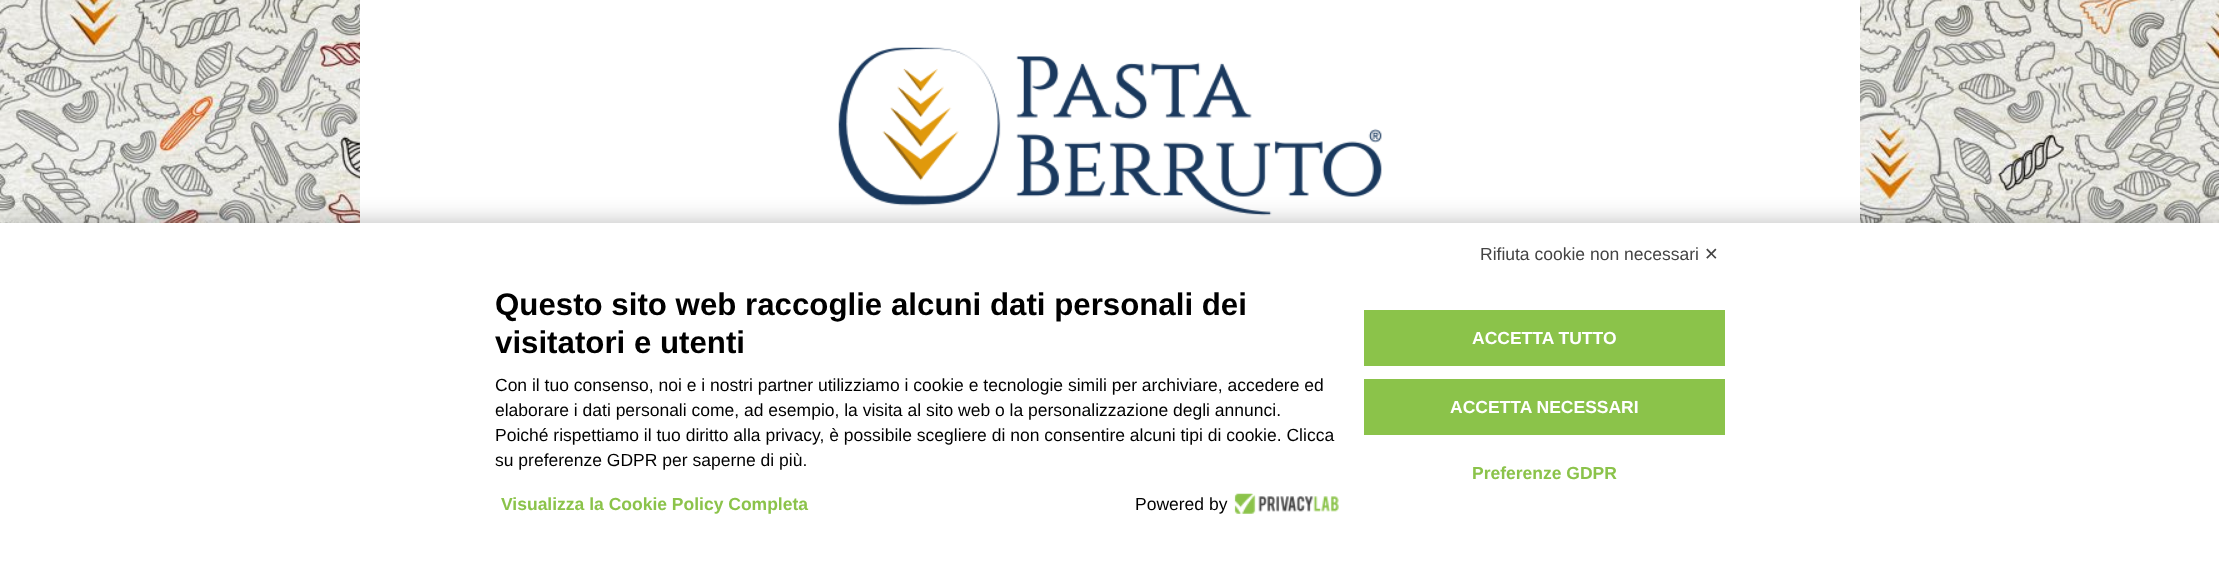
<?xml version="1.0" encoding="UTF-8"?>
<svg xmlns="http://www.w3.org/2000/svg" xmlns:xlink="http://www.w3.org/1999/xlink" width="2219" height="574">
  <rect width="100%" height="100%" fill="#ffffff" />
  <image x="0" y="0" width="2219" height="223" xlink:href="image1.png" />
  <rect x="360" width="1500" height="223" fill="#ffffff" />
  <image x="838" y="47" width="544" height="169" xlink:href="image2.png" />
  <rect y="223" width="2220" height="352" fill="#000000" fill-opacity="0.27" filter="blur(12.5px)" />
  <rect y="223" width="2219" height="351" fill="#ffffff" />
  <image x="1234" y="493" width="105" height="21" xlink:href="image3.png" />
  <rect x="1364" y="310" width="361" height="56" fill="#8bc34a" />
  <rect x="1364" y="379" width="361" height="56" fill="#8bc34a" />
  <text x="1480" y="260" style="font-family: Liberation Sans; font-size: 17.5px; fill: #444444">Rifiuta cookie non necessari</text>
  <text x="1704" y="260" style="font-family: DejaVu Sans; font-size: 17.5px; fill: #444444">✕</text>
  <text x="495" y="315" style="font-family: Liberation Sans; font-size: 31.25px; font-weight: bold; fill: #000000">Questo sito web raccoglie alcuni dati personali dei</text>
  <text x="495" y="353" style="font-family: Liberation Sans; font-size: 31.25px; font-weight: bold; fill: #000000">visitatori e utenti</text>
  <text x="495" y="391" style="font-family: Liberation Sans; font-size: 17.5px; fill: #000000">Con il tuo consenso, noi e i nostri partner utilizziamo i cookie e tecnologie simili per archiviare, accedere ed</text>
  <text x="495" y="416" style="font-family: Liberation Sans; font-size: 17.5px; fill: #000000">elaborare i dati personali come, ad esempio, la visita al sito web o la personalizzazione degli annunci.</text>
  <text x="495" y="441" style="font-family: Liberation Sans; font-size: 17.5px; fill: #000000">Poiché rispettiamo il tuo diritto alla privacy, è possibile scegliere di non consentire alcuni tipi di cookie. Clicca</text>
  <text x="495" y="466" style="font-family: Liberation Sans; font-size: 17.5px; fill: #000000">su preferenze GDPR per saperne di più.</text>
  <text x="501" y="510" style="font-family: Liberation Sans; font-size: 17.5px; font-weight: bold; fill: #8bc34a">Visualizza la Cookie Policy Completa</text>
  <text x="1135" y="510" style="font-family: Liberation Sans; font-size: 17.5px; fill: #000000">Powered by</text>
  <text x="1472" y="344" style="font-family: Liberation Sans; font-size: 17.5px; font-weight: bold; fill: #ffffff">ACCETTA TUTTO</text>
  <text x="1450" y="413" style="font-family: Liberation Sans; font-size: 17.5px; font-weight: bold; fill: #ffffff">ACCETTA NECESSARI</text>
  <text x="1472" y="479" style="font-family: Liberation Sans; font-size: 17.5px; font-weight: bold; fill: #8bc34a">Preferenze GDPR</text>
</svg>
